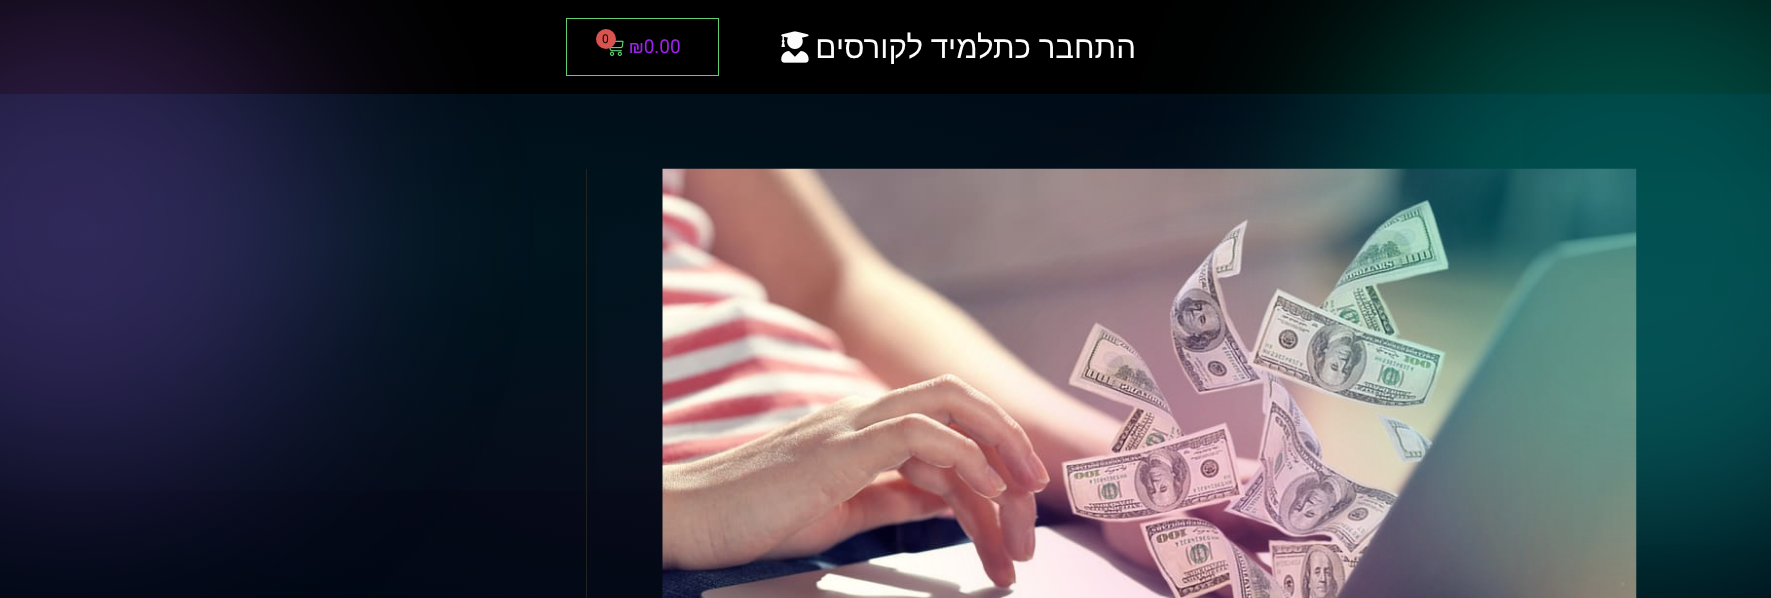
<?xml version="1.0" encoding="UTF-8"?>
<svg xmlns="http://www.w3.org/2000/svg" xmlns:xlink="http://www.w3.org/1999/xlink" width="1771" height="598">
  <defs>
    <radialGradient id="g1" gradientUnits="userSpaceOnUse" cx="0" cy="0" r="1" gradientTransform="matrix(886 0 0 180 886 479)"><stop offset="0" stop-color="#0a0b1a" /><stop offset="1" stop-color="#000814" /></radialGradient>
    <radialGradient id="g2" gradientUnits="userSpaceOnUse" cx="0" cy="0" r="1" gradientTransform="matrix(1063 0 0 240 1417 359)"><stop offset="0" stop-color="#3e2a68" stop-opacity="0.15" /><stop offset="1" stop-color="#3e2a68" stop-opacity="0" /></radialGradient>
    <radialGradient id="g3" gradientUnits="userSpaceOnUse" cx="0" cy="0" r="1" gradientTransform="matrix(1417 0 0 299 354 240)"><stop offset="0" stop-color="#006761" stop-opacity="0.15" /><stop offset="1" stop-color="#006761" stop-opacity="0" /></radialGradient>
  </defs>
  <rect width="100%" height="100%" fill="#ffffff" />
  <rect width="1771" height="94" fill="#000000" />
  <rect y="94" width="1771" height="504" fill="url(#g1)" />
  <rect x="596" y="173" width="1175" height="372" fill="url(#g2)" />
  <rect y="94" width="1523" height="397" fill="url(#g3)" />
  <image x="781" y="31" width="28" height="32" xlink:href="image1.png" />
  <image x="662" y="168" width="975" height="430" xlink:href="image3.png" />
  <rect x="1043" y="300" width="375" height="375" rx="187.5" fill="#f15bb5" fill-opacity="0.3" filter="blur(100px)" />
  <rect x="566.5" y="18.5" width="152" height="57" fill="none" stroke="#61ce70" />
  <image x="609" y="40" width="15" height="16" xlink:href="image2.png" />
  <circle cx="606" cy="39" r="10" fill="#d9534f" />
  <rect x="586" y="169" width="1" height="429" fill="#222222" />
  <rect x="-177" y="-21" width="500" height="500" rx="250" fill="#9b5de5" fill-opacity="0.3" filter="blur(100px)" />
  <rect x="1324" y="-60" width="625" height="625" rx="312.5" fill="#00f5d4" fill-opacity="0.3" filter="blur(100px)" />
  <text x="1136" y="58" word-spacing="-1" style="font-family: Liberation Sans; font-size: 31.25px; direction: rtl; fill: #fcfcfc">התחבר כתלמיד לקורסים</text>
  <text x="629" y="53" style="font-family: Roboto; font-size: 19px; fill: #a020f0">₪0.00</text>
  <text x="602" y="43" style="font-family: Roboto; font-size: 12px; fill: #000000">0</text>
</svg>
